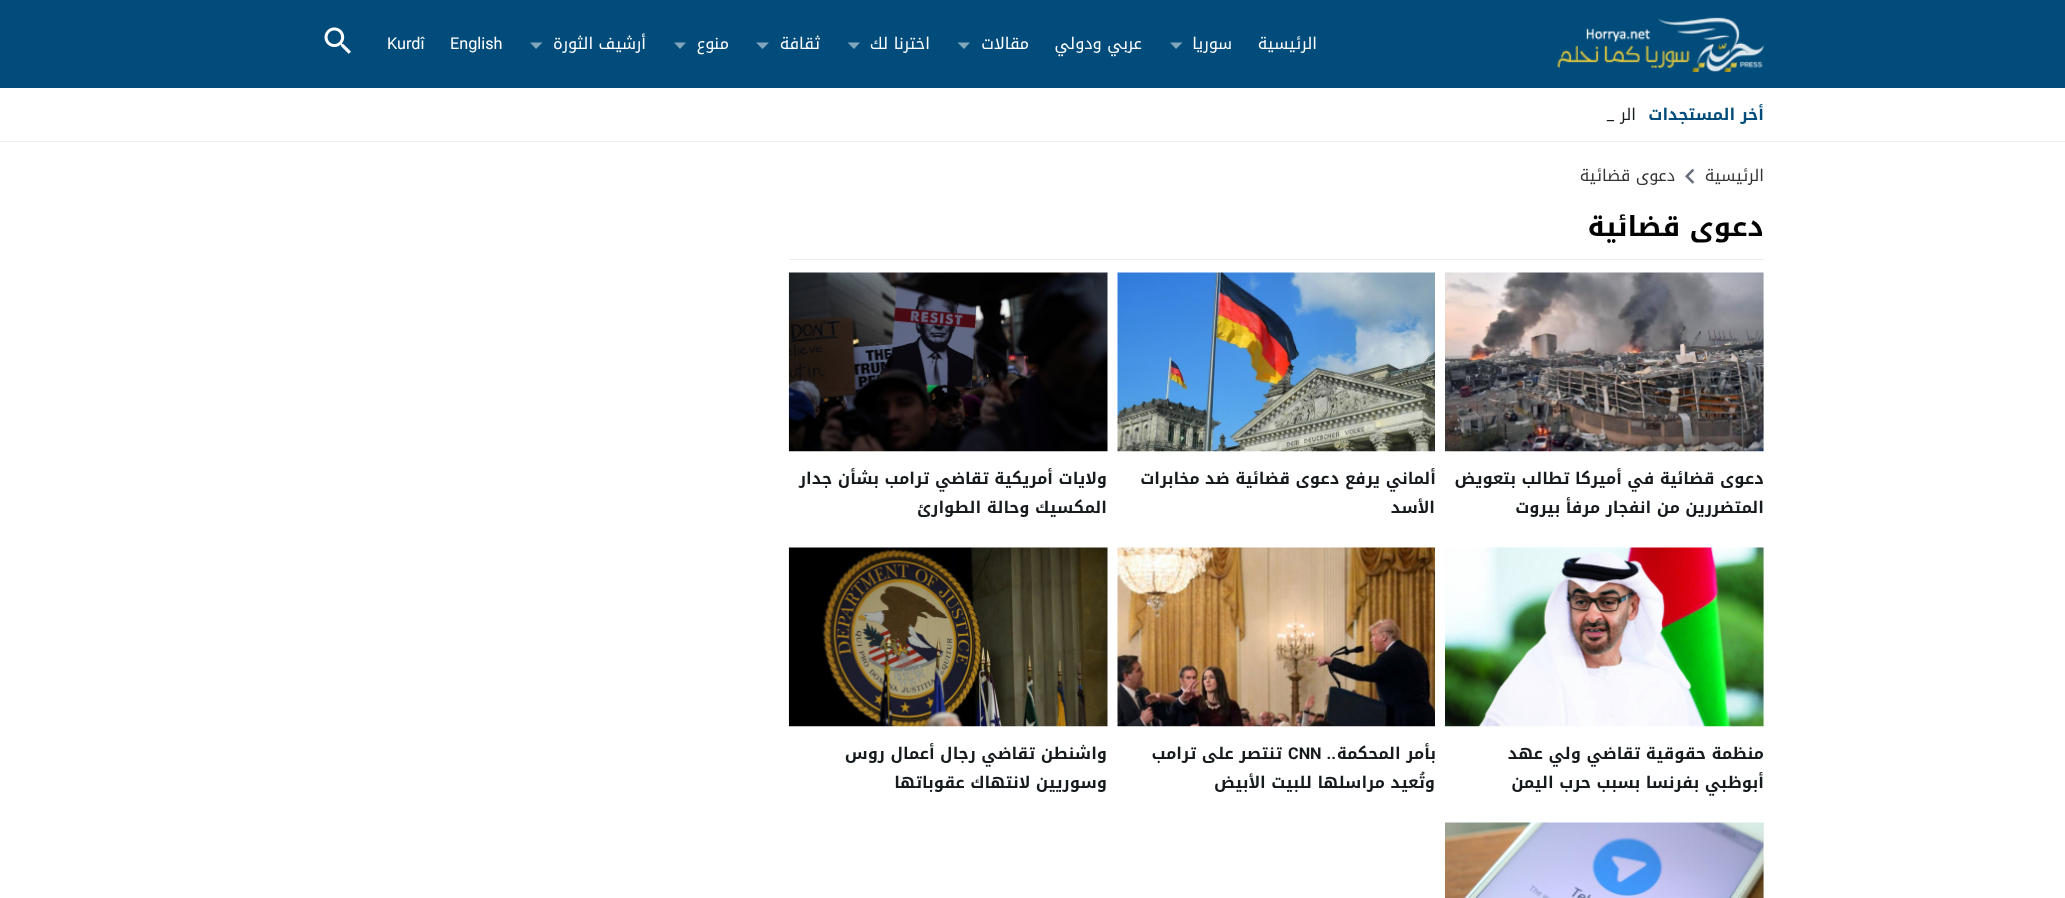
<?xml version="1.0" encoding="UTF-8"?>
<svg xmlns="http://www.w3.org/2000/svg" xmlns:xlink="http://www.w3.org/1999/xlink" width="2065" height="898">
  <rect width="100%" height="100%" fill="#ffffff" />
  <rect width="2065" height="88" fill="#014c7a" />
  <image x="1557" y="17" width="207" height="55" xlink:href="image1.png" />
  <path d="M 1170 42.5 h 12.5 l -6.5 6.5 z" fill="#80a6bd" />
  <path d="M 957.5 42.5 h 12.5 l -6 6.5 z" fill="#80a6bd" />
  <path d="M 847.5 42.5 h 12.5 l -6 6.5 z" fill="#80a6bd" />
  <path d="M 756 42.5 h 13 l -6.5 6.5 z" fill="#80a6bd" />
  <path d="M 674 42.5 h 12 l -6 6.5 z" fill="#80a6bd" />
  <path d="M 530 42.5 h 12.5 l -6.5 6.5 z" fill="#80a6bd" />
  <image x="324" y="27" width="27" height="27" xlink:href="image2.png" />
  <rect y="141" width="2065" height="1" fill="#e9edf0" />
  <image x="1685" y="168" width="10" height="16" xlink:href="image3.png" />
  <rect x="789" y="259" width="975" height="1" fill="#e9edf0" />
  <image x="1445" y="272" width="319" height="180" xlink:href="image4.png" />
  <image x="1117" y="272" width="318" height="180" xlink:href="image5.png" />
  <image x="788" y="272" width="320" height="180" xlink:href="image6.png" />
  <image x="1445" y="547" width="319" height="180" xlink:href="image7.png" />
  <image x="1117" y="547" width="318" height="180" xlink:href="image8.png" />
  <image x="788" y="547" width="320" height="180" xlink:href="image9.png" />
  <image x="1445" y="822" width="319" height="76" xlink:href="image10.png" />
  <text x="1317" y="49" style="font-family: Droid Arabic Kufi; font-size: 16.25px; direction: rtl; fill: #ffffff">الرئيسية</text>
  <text x="1232" y="49" style="font-family: Droid Arabic Kufi; font-size: 16.25px; direction: rtl; fill: #ffffff">سوريا</text>
  <text x="1142" y="49" style="font-family: Droid Arabic Kufi; font-size: 16.25px; direction: rtl; fill: #ffffff">عربي ودولي</text>
  <text x="1029" y="49" style="font-family: Droid Arabic Kufi; font-size: 16.25px; direction: rtl; fill: #ffffff">مقالات</text>
  <text x="930" y="49" style="font-family: Droid Arabic Kufi; font-size: 16.25px; direction: rtl; fill: #ffffff">اخترنا لك</text>
  <text x="820" y="49" style="font-family: Droid Arabic Kufi; font-size: 16.25px; direction: rtl; fill: #ffffff">ثقافة</text>
  <text x="729" y="49" style="font-family: Droid Arabic Kufi; font-size: 16.25px; direction: rtl; fill: #ffffff">منوع</text>
  <text x="646" y="49" style="font-family: Droid Arabic Kufi; font-size: 16.25px; direction: rtl; fill: #ffffff">أرشيف الثورة</text>
  <text x="450" y="49" style="font-family: Roboto; font-size: 16.25px; fill: #ffffff">English</text>
  <text x="387" y="49" style="font-family: Roboto; font-size: 16.25px; fill: #ffffff">Kurdî</text>
  <text x="1764" y="120" style="font-family: Droid Arabic Kufi; font-size: 16.25px; font-weight: bold; direction: rtl; fill: #014c7a">أخر المستجدات</text>
  <text x="1636" y="120" style="font-family: Droid Arabic Kufi; font-size: 16.25px; direction: rtl; fill: #161b1e">الر</text>
  <text x="1614" y="120" style="font-family: Roboto; font-size: 16.25px; direction: rtl; fill: #161b1e">_</text>
  <text x="1764" y="181" style="font-family: Droid Arabic Kufi; font-size: 16.25px; direction: rtl; fill: #333333">الرئيسية</text>
  <text x="1675" y="181" style="font-family: Droid Arabic Kufi; font-size: 16.25px; direction: rtl; fill: #333333">دعوى قضائية</text>
  <text x="1764" y="236" style="font-family: Droid Arabic Kufi; font-size: 27.5px; font-weight: bold; direction: rtl; fill: #000000">دعوى قضائية</text>
  <text x="1764" y="484" style="font-family: Droid Arabic Kufi; font-size: 16.25px; font-weight: bold; direction: rtl; fill: #161b1e">دعوى قضائية في أميركا تطالب بتعويض</text>
  <text x="1764" y="513" style="font-family: Droid Arabic Kufi; font-size: 16.25px; font-weight: bold; direction: rtl; fill: #161b1e">المتضررين من انفجار مرفأ بيروت</text>
  <text x="1436" y="484" style="font-family: Droid Arabic Kufi; font-size: 16.25px; font-weight: bold; direction: rtl; fill: #161b1e">ألماني يرفع دعوى قضائية ضد مخابرات</text>
  <text x="1435" y="513" style="font-family: Droid Arabic Kufi; font-size: 16.25px; font-weight: bold; direction: rtl; fill: #161b1e">الأسد</text>
  <text x="1107" y="484" style="font-family: Droid Arabic Kufi; font-size: 16.25px; font-weight: bold; direction: rtl; fill: #161b1e">ولايات أمريكية تقاضي ترامب بشأن جدار</text>
  <text x="1107" y="513" style="font-family: Droid Arabic Kufi; font-size: 16.25px; font-weight: bold; direction: rtl; fill: #161b1e">المكسيك وحالة الطوارئ</text>
  <text x="1764" y="759" style="font-family: Droid Arabic Kufi; font-size: 16.25px; font-weight: bold; direction: rtl; fill: #161b1e">منظمة حقوقية تقاضي ولي عهد</text>
  <text x="1764" y="788" style="font-family: Droid Arabic Kufi; font-size: 16.25px; font-weight: bold; direction: rtl; fill: #161b1e">أبوظبي بفرنسا بسبب حرب اليمن</text>
  <text x="1436" y="759" style="font-family: Droid Arabic Kufi; font-size: 16.25px; font-weight: bold; direction: rtl; fill: #161b1e">بأمر المحكمة</text>
  <text x="1336" y="759" style="font-family: Roboto; font-size: 16.25px; font-weight: bold; direction: rtl; fill: #161b1e">..</text>
  <text x="1288" y="759" style="font-family: Roboto; font-size: 16.25px; font-weight: bold; fill: #161b1e">CNN</text>
  <text x="1282" y="759" style="font-family: Droid Arabic Kufi; font-size: 16.25px; font-weight: bold; direction: rtl; fill: #161b1e">تنتصر على ترامب</text>
  <text x="1435" y="788" style="font-family: Droid Arabic Kufi; font-size: 16.25px; font-weight: bold; direction: rtl; fill: #161b1e">وتُعيد مراسلها للبيت الأبيض</text>
  <text x="1107" y="759" style="font-family: Droid Arabic Kufi; font-size: 16.25px; font-weight: bold; direction: rtl; fill: #161b1e">واشنطن تقاضي رجال أعمال روس</text>
  <text x="1107" y="788" style="font-family: Droid Arabic Kufi; font-size: 16.25px; font-weight: bold; direction: rtl; fill: #161b1e">وسوريين لانتهاك عقوباتها</text>
</svg>
